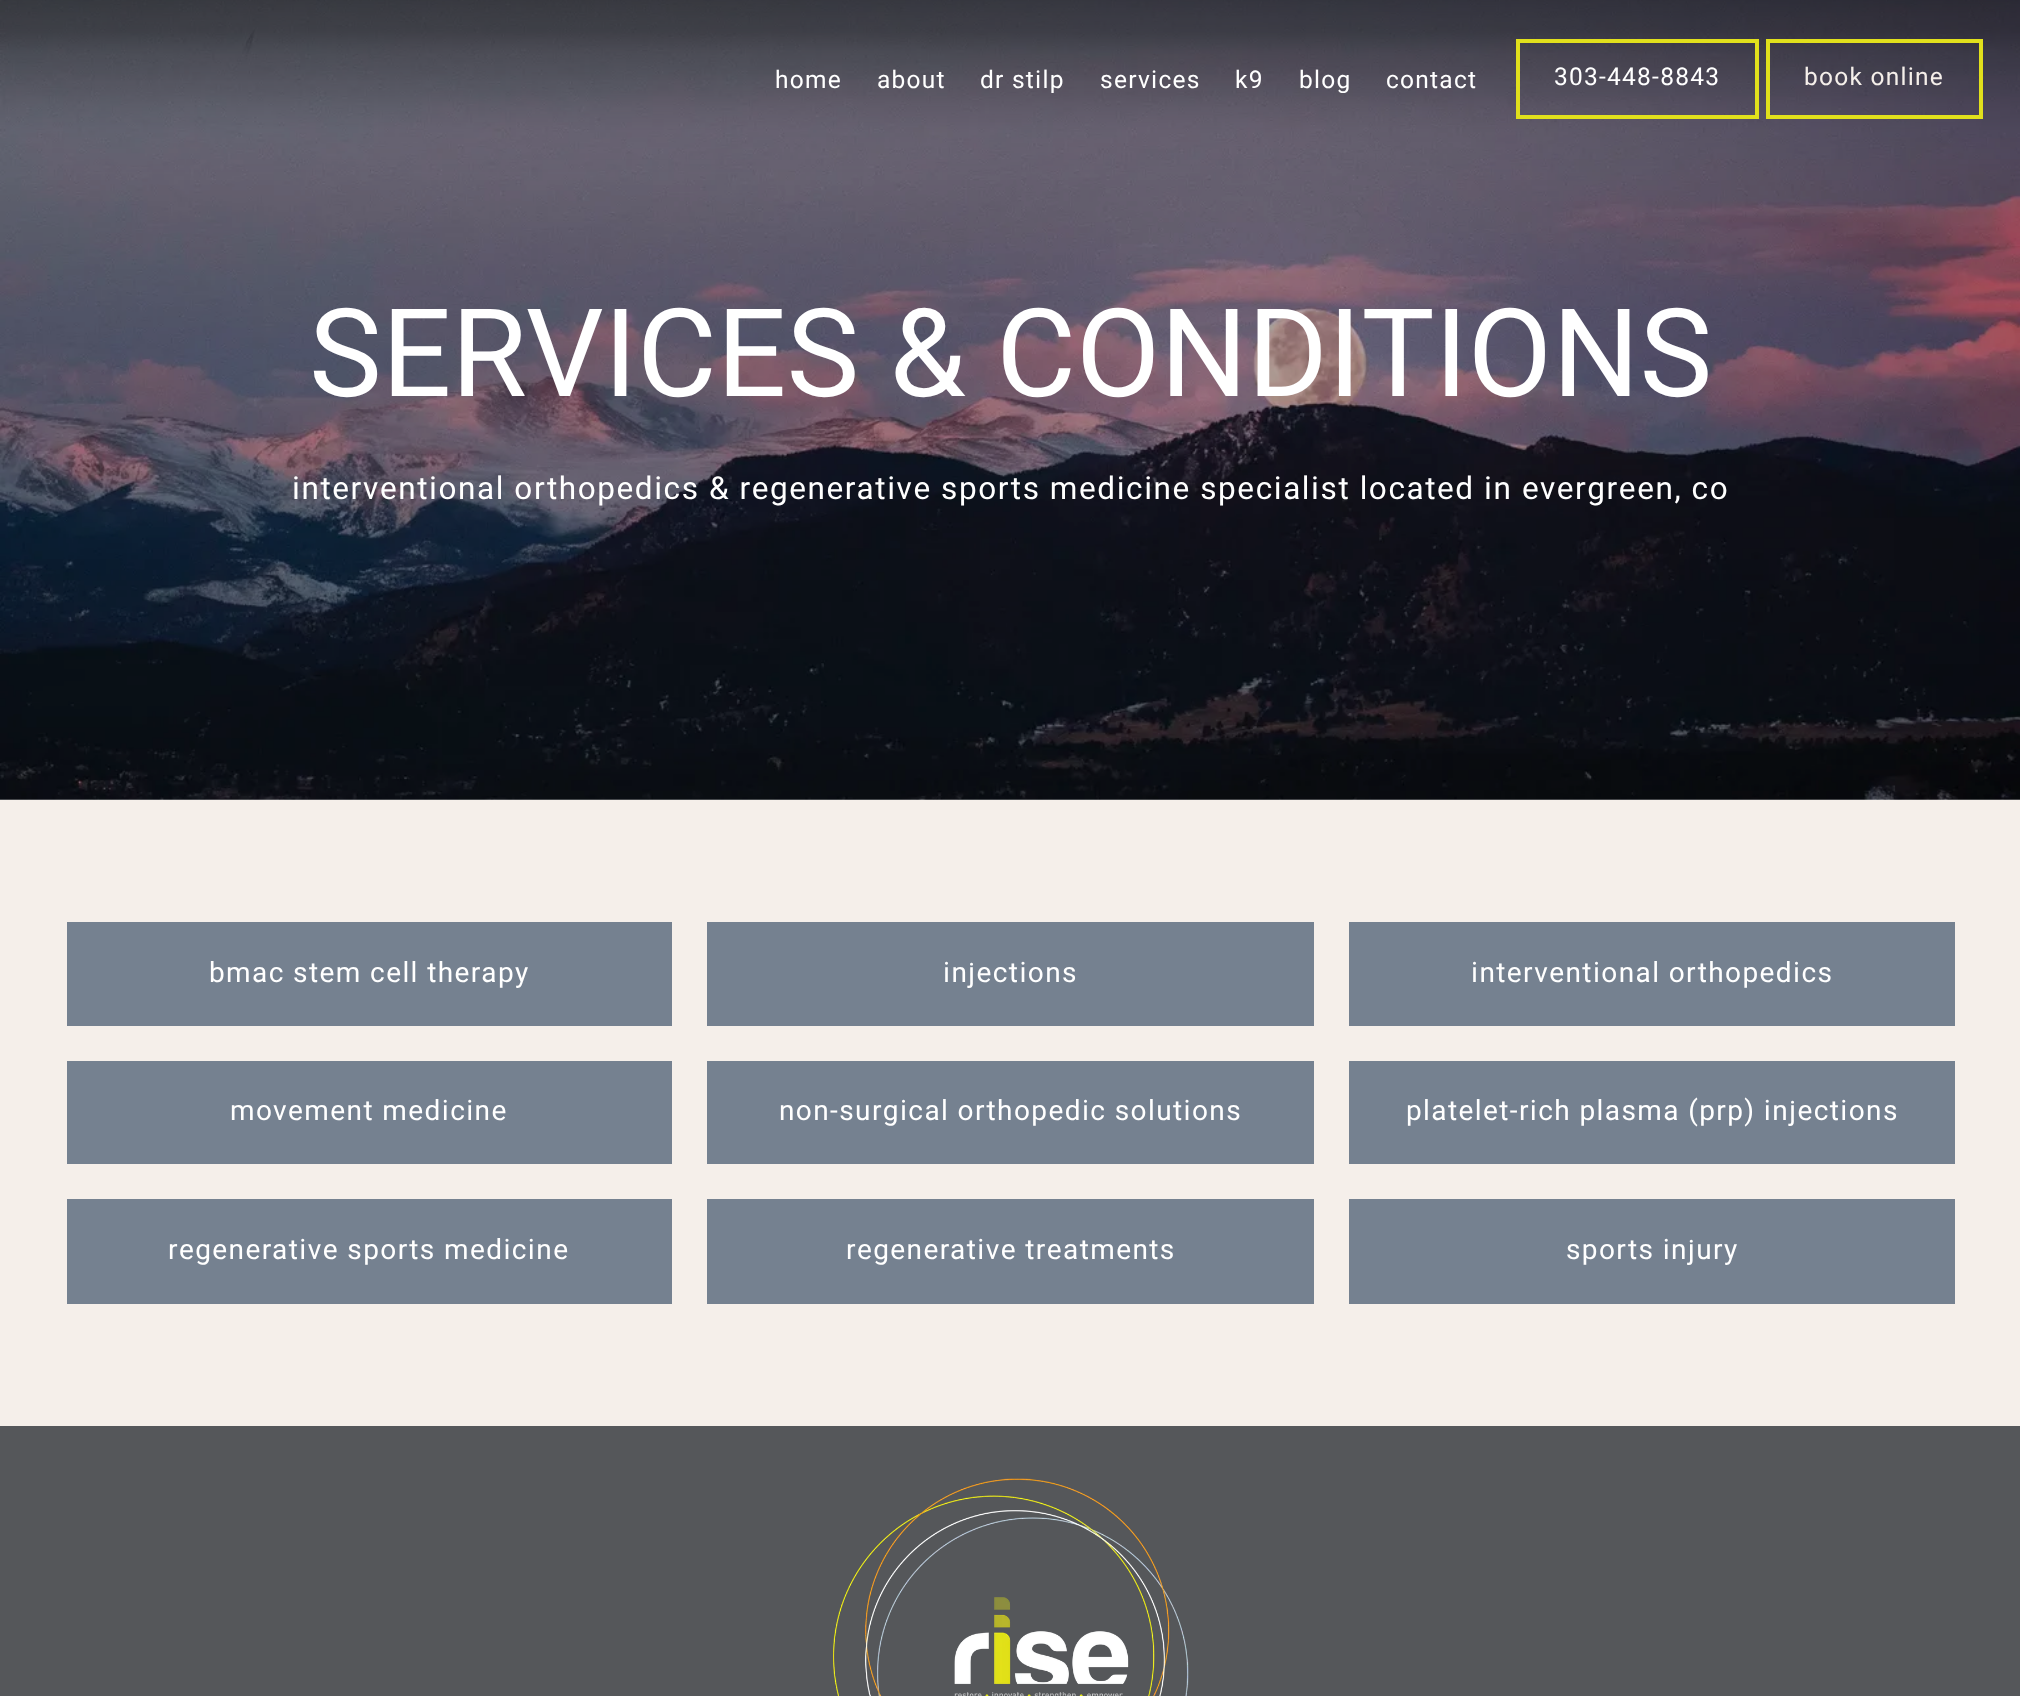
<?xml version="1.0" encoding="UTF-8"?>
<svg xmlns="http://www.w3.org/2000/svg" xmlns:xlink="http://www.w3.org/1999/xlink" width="2020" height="1696">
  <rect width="100%" height="100%" fill="#ffffff" />
  <image x="0" y="0" width="2020" height="800" xlink:href="image1.png" />
  <rect x="1518" y="41" width="239" height="76" fill="none" stroke="#e1e01c" stroke-width="4" />
  <rect x="1768" y="41" width="213" height="76" fill="none" stroke="#e1e01c" stroke-width="4" />
  <rect y="800" width="2020" height="626" fill="#f5efea" />
  <rect x="67" y="922" width="605" height="104" fill="#758190" />
  <rect x="707" y="922" width="607" height="104" fill="#758190" />
  <rect x="1349" y="922" width="606" height="104" fill="#758190" />
  <rect x="67" y="1061" width="605" height="103" fill="#758190" />
  <rect x="707" y="1061" width="607" height="103" fill="#758190" />
  <rect x="1349" y="1061" width="606" height="103" fill="#758190" />
  <rect x="67" y="1199" width="605" height="105" fill="#758190" />
  <rect x="707" y="1199" width="607" height="105" fill="#758190" />
  <rect x="1349" y="1199" width="606" height="105" fill="#758190" />
  <rect y="1426" width="2020" height="270" fill="#55575a" />
  <image x="833" y="1478" width="356" height="218" xlink:href="image2.png" />
  <text x="775" y="88" style="font-family: Heebo; font-size: 24.5px; letter-spacing: 1.25px; fill: #ffffff">home</text>
  <text x="877" y="88" style="font-family: Heebo; font-size: 24.5px; letter-spacing: 1.25px; fill: #ffffff">about</text>
  <text x="980" y="88" style="font-family: Heebo; font-size: 24.5px; letter-spacing: 1.25px; fill: #ffffff">dr stilp</text>
  <text x="1100" y="88" style="font-family: Heebo; font-size: 24.5px; letter-spacing: 1.25px; fill: #ffffff">services</text>
  <text x="1235" y="88" style="font-family: Heebo; font-size: 24.5px; letter-spacing: 1.25px; fill: #ffffff">k9</text>
  <text x="1299" y="88" style="font-family: Heebo; font-size: 24.5px; letter-spacing: 1.25px; fill: #ffffff">blog</text>
  <text x="1386" y="88" style="font-family: Heebo; font-size: 24.5px; letter-spacing: 1.25px; fill: #ffffff">contact</text>
  <text x="1554" y="85" style="font-family: Heebo; font-size: 24.5px; letter-spacing: 1.25px; fill: #ffffff">303-448-8843</text>
  <text x="1804" y="85" style="font-family: Heebo; font-size: 24.5px; letter-spacing: 1.25px; fill: #f5efea">book online</text>
  <text x="309" y="396" style="font-family: Heebo; font-size: 122.5px; fill: #ffffff">SERVICES &amp; CONDITIONS</text>
  <text x="292" y="499" style="font-family: Heebo; font-size: 31.5px; letter-spacing: 1.57px; fill: #ffffff">interventional orthopedics &amp; regenerative sports medicine specialist located in evergreen, co</text>
  <text x="209" y="982" style="font-family: Heebo; font-size: 28px; letter-spacing: 1.4px; fill: #ffffff">bmac stem cell therapy</text>
  <text x="943" y="982" style="font-family: Heebo; font-size: 28px; letter-spacing: 1.4px; fill: #ffffff">injections</text>
  <text x="1471" y="982" style="font-family: Heebo; font-size: 28px; letter-spacing: 1.4px; fill: #ffffff">interventional orthopedics</text>
  <text x="230" y="1120" style="font-family: Heebo; font-size: 28px; letter-spacing: 1.4px; fill: #ffffff">movement medicine</text>
  <text x="779" y="1120" style="font-family: Heebo; font-size: 28px; letter-spacing: 1.4px; fill: #ffffff">non-surgical orthopedic solutions</text>
  <text x="1406" y="1120" style="font-family: Heebo; font-size: 28px; letter-spacing: 1.4px; fill: #ffffff">platelet-rich plasma (prp) injections</text>
  <text x="168" y="1259" style="font-family: Heebo; font-size: 28px; letter-spacing: 1.4px; fill: #ffffff">regenerative sports medicine</text>
  <text x="846" y="1259" style="font-family: Heebo; font-size: 28px; letter-spacing: 1.4px; fill: #ffffff">regenerative treatments</text>
  <text x="1566" y="1259" style="font-family: Heebo; font-size: 28px; letter-spacing: 1.4px; fill: #ffffff">sports injury</text>
</svg>
